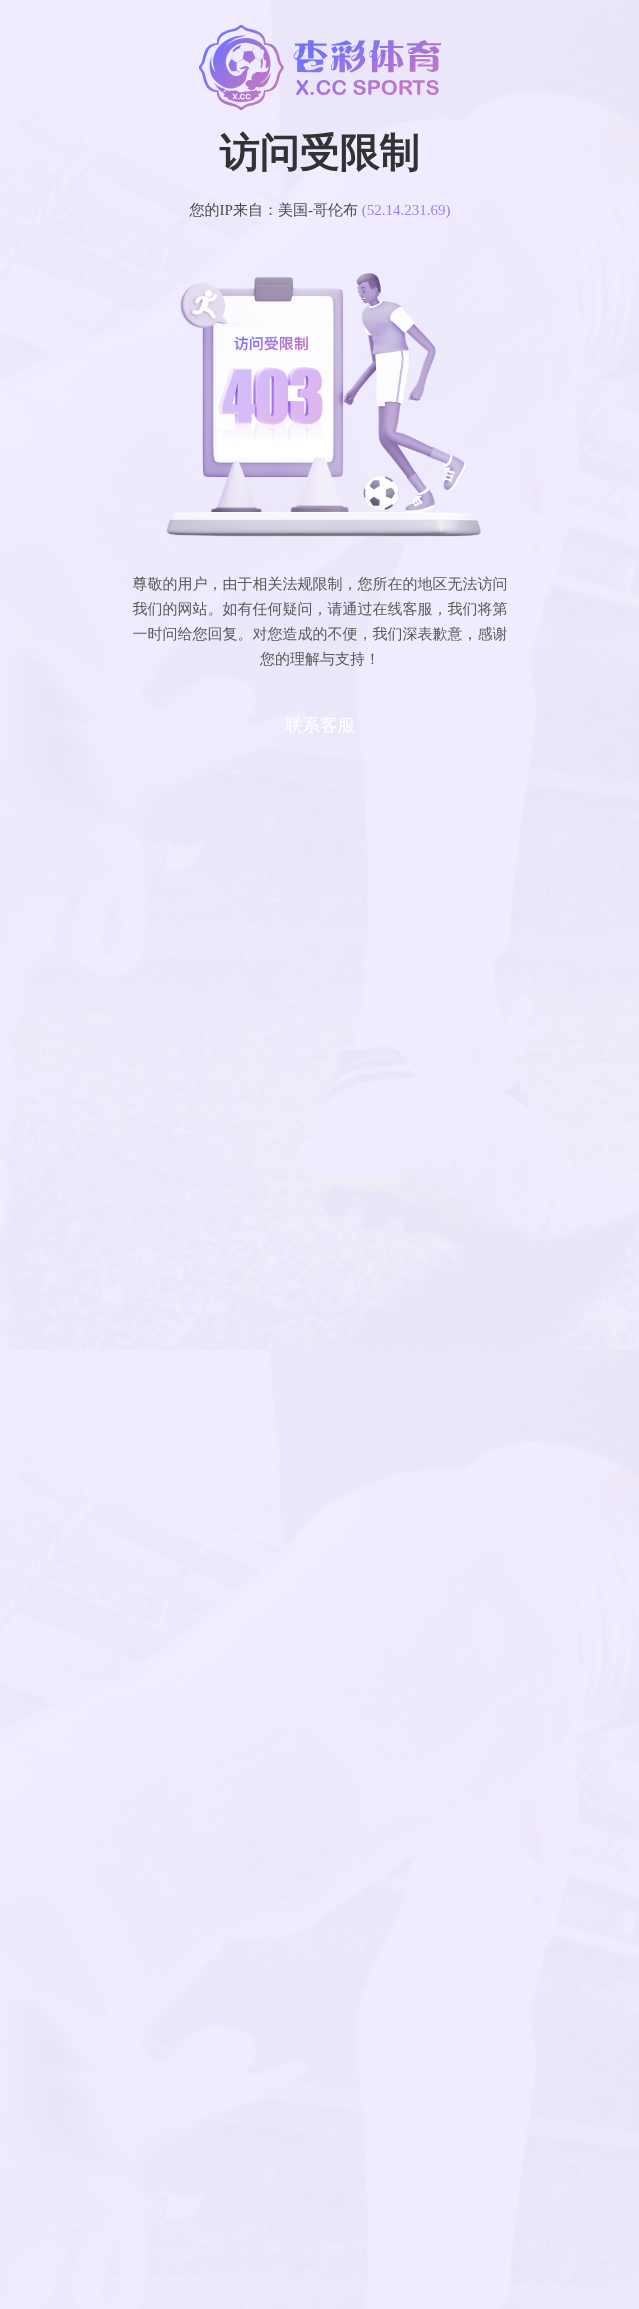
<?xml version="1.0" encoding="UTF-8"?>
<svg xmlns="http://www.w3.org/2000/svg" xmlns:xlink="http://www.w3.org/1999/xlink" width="639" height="2309">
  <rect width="100%" height="100%" fill="#ffffff" />
  <image x="0" y="0" width="639" height="2309" xlink:href="image1.png" />
</svg>
